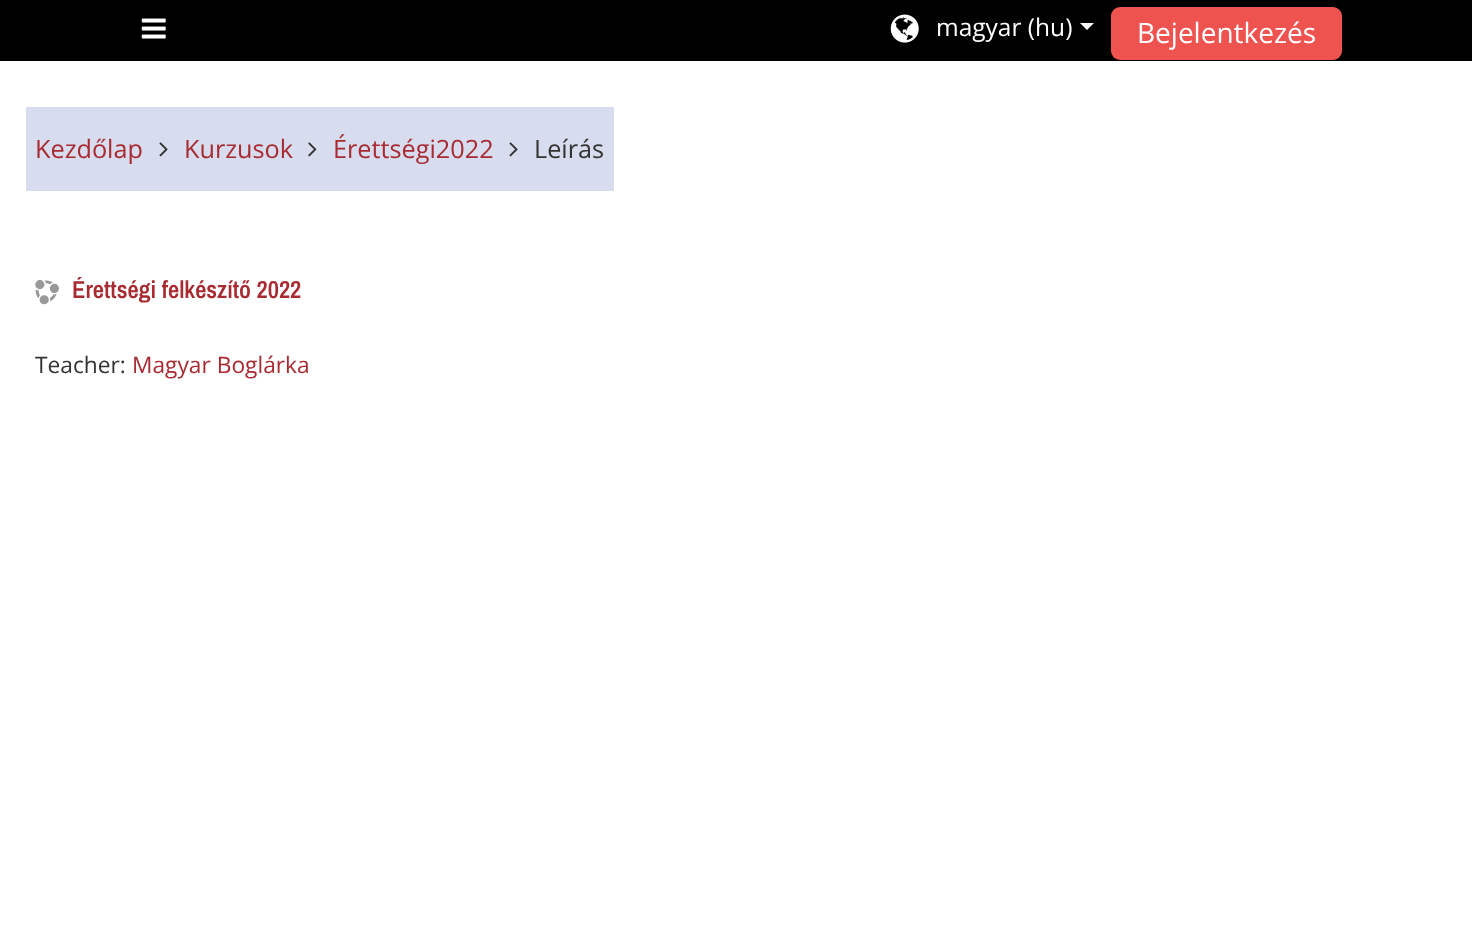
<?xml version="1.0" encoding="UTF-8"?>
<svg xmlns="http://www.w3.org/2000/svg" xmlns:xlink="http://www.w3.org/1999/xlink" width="1472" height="942">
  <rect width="100%" height="100%" fill="#ffffff" />
  <rect width="1472" height="61" fill="#000000" />
  <image x="141" y="18" width="25" height="21" xlink:href="image1.png" />
  <image x="890" y="14" width="29" height="29" xlink:href="image2.png" />
  <path d="M 1080 23 h 14 l -7 7 z" fill="#ffffff" />
  <rect x="1111" y="7" width="231" height="53" rx="9" fill="#ef5350" />
  <rect x="26" y="107" width="588" height="84" fill="#d8dcef" />
  <image x="159" y="142" width="9" height="15" xlink:href="image3.png" />
  <image x="308" y="142" width="9" height="15" xlink:href="image4.png" />
  <image x="509" y="142" width="9" height="15" xlink:href="image3.png" />
  <image x="35" y="280" width="24" height="25" xlink:href="image5.png" />
  <text x="936" y="36" style="font-family: Open Sans; font-size: 24.5px; fill: #ffffff">magyar (hu)</text>
  <text x="1137" y="43" style="font-family: Open Sans; font-size: 28px; fill: #ffffff">Bejelentkezés</text>
  <text x="35" y="158" style="font-family: Open Sans; font-size: 25.25px; fill: #a82b31">Kezdőlap</text>
  <text x="184" y="158" style="font-family: Open Sans; font-size: 25.25px; fill: #a82b31">Kurzusok</text>
  <text x="333" y="158" style="font-family: Open Sans; font-size: 25.25px; fill: #a82b31">Érettségi2022</text>
  <text x="534" y="158" style="font-family: Open Sans; font-size: 25.25px; fill: #333333">Leírás</text>
  <text x="72" y="298" style="font-family: Archivo Narrow; font-size: 24.5px; font-weight: 600; fill: #a82b31">Érettségi felkészítő 2022</text>
  <text x="35" y="373" style="font-family: Open Sans; font-size: 22.75px; fill: #333333">Teacher:</text>
  <text x="132" y="373" style="font-family: Open Sans; font-size: 22.75px; fill: #a82b31">Magyar Boglárka</text>
</svg>
